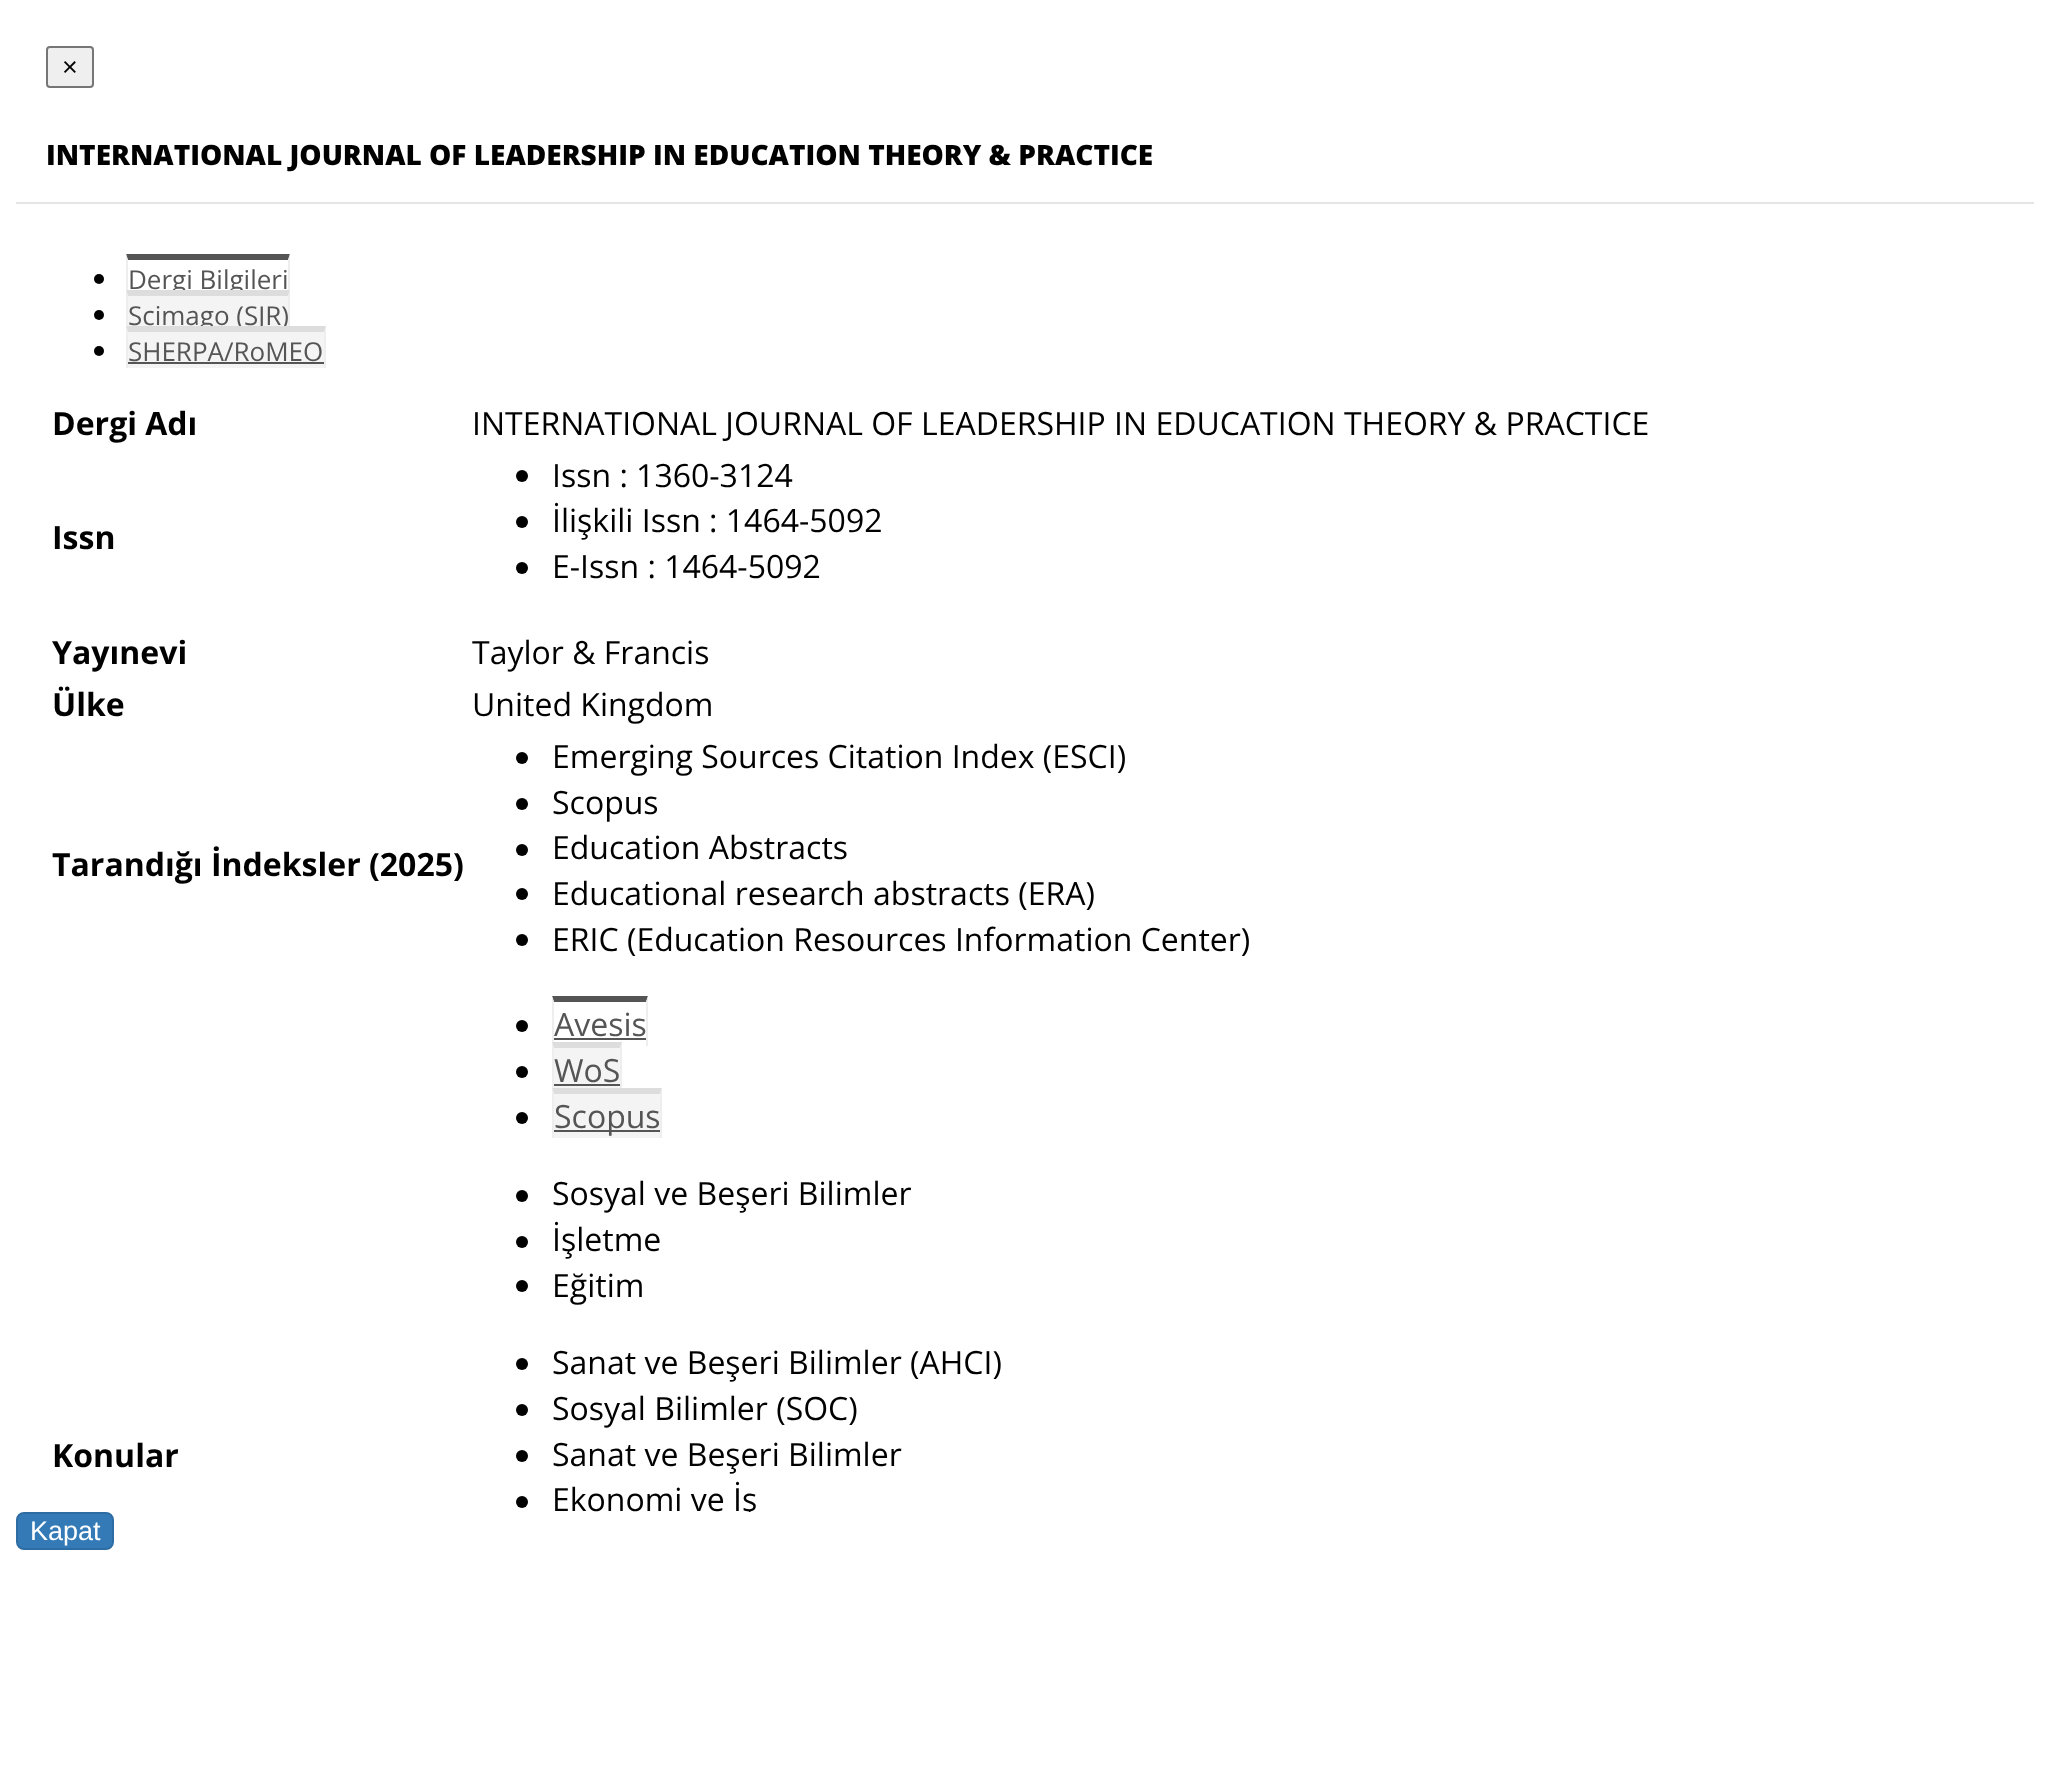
<?xml version="1.0" encoding="UTF-8"?>
<svg xmlns="http://www.w3.org/2000/svg" xmlns:xlink="http://www.w3.org/1999/xlink" width="2049" height="1782">
  <defs>
    <clipPath id="clip1"><rect x="16" y="204" width="2018" height="1308" /></clipPath>
  </defs>
  <rect width="100%" height="100%" fill="#ffffff" />
  <rect x="16" y="202" width="2018" height="2" fill="#e5e5e5" />
  <rect x="47" y="47" width="46" height="40" rx="3" fill="#efefef" stroke="#767676" stroke-width="2" />
  <circle cx="99" cy="279" r="5" fill="#000000" />
  <path d="M 126 254 h 164 l -2 6 h -160 z" fill="#555555" />
  <path d="M 290 254 v 42 h -2 v -36 z" fill="#eeeeee" />
  <path d="M 126 296 v -42 l 2 6 v 36 z" fill="#eeeeee" />
  <circle cx="99" cy="315" r="5" fill="#000000" />
  <circle cx="99" cy="351" r="5" fill="#000000" />
  <circle cx="522" cy="476" r="6" fill="#000000" />
  <circle cx="522" cy="522" r="6" fill="#000000" />
  <circle cx="522" cy="568" r="6" fill="#000000" />
  <circle cx="522" cy="758" r="6" fill="#000000" />
  <circle cx="522" cy="804" r="6" fill="#000000" />
  <circle cx="522" cy="850" r="6" fill="#000000" />
  <circle cx="522" cy="894" r="6" fill="#000000" />
  <circle cx="522" cy="940" r="6" fill="#000000" />
  <circle cx="522" cy="1026" r="6" fill="#000000" />
  <path d="M 552 996 h 96 l -2 6 h -92 z" fill="#555555" />
  <path d="M 648 996 v 50 h -2 v -44 z" fill="#eeeeee" />
  <path d="M 552 1046 v -50 l 2 6 v 44 z" fill="#eeeeee" />
  <rect x="554" y="1038" width="92" height="2" fill="#555555" />
  <circle cx="522" cy="1072" r="6" fill="#000000" />
  <rect x="552" y="1042" width="70" height="46" fill="#f4f4f4" />
  <path d="M 552 1042 h 70 l -2 6 h -66 z" fill="#dddddd" />
  <path d="M 622 1042 v 50 h -2 v -44 z" fill="#eeeeee" />
  <path d="M 552 1092 v -50 l 2 6 v 44 z" fill="#eeeeee" />
  <rect x="554" y="1084" width="66" height="2" fill="#555555" />
  <circle cx="522" cy="1118" r="6" fill="#000000" />
  <rect x="552" y="1088" width="110" height="50" fill="#f4f4f4" />
  <path d="M 552 1088 h 110 l -2 6 h -106 z" fill="#dddddd" />
  <path d="M 662 1088 v 50 h -2 v -44 z" fill="#eeeeee" />
  <path d="M 552 1138 v -50 l 2 6 v 44 z" fill="#eeeeee" />
  <rect x="554" y="1130" width="106" height="2" fill="#555555" />
  <circle cx="522" cy="1196" r="6" fill="#000000" />
  <circle cx="522" cy="1242" r="6" fill="#000000" />
  <circle cx="522" cy="1286" r="6" fill="#000000" />
  <circle cx="522" cy="1364" r="6" fill="#000000" />
  <circle cx="522" cy="1410" r="6" fill="#000000" />
  <circle cx="522" cy="1456" r="6" fill="#000000" />
  <circle cx="522" cy="1502" r="6" fill="#000000" />
  <rect x="17" y="1513" width="96" height="36" rx="7" fill="#337ab7" stroke="#2e6da4" stroke-width="2" />
  <text x="62" y="76" style="font-family: Liberation Sans; font-size: 27px; fill: #000000">×</text>
  <text x="46" y="165" style="font-family: Open Sans; font-size: 28px; font-weight: 800; fill: #000000">INTERNATIONAL JOURNAL OF LEADERSHIP IN EDUCATION THEORY &amp; PRACTICE</text>
  <text x="128" y="289" style="font-family: Open Sans; font-size: 26px; fill: #555555">Dergi Bilgileri</text>
  <rect x="126" y="290" width="164" height="36" fill="#f4f4f4" />
  <text x="128" y="325" style="font-family: Open Sans; font-size: 26px; fill: #555555">Scimago (SJR)</text>
  <path d="M 126 290 h 164 l -2 6 h -160 z" fill="#dddddd" />
  <path d="M 290 290 v 42 h -2 v -36 z" fill="#eeeeee" />
  <path d="M 126 332 v -42 l 2 6 v 36 z" fill="#eeeeee" />
  <rect x="126" y="326" width="200" height="42" fill="#f4f4f4" />
  <text x="128" y="361" style="font-family: Open Sans; font-size: 26px; fill: #555555">SHERPA/RoMEO</text>
  <path d="M 126 326 h 200 l -2 6 h -196 z" fill="#dddddd" />
  <path d="M 326 326 v 42 h -2 v -36 z" fill="#eeeeee" />
  <path d="M 126 368 v -42 l 2 6 v 36 z" fill="#eeeeee" />
  <rect x="128" y="362" width="196" height="2" fill="#555555" />
  <text x="52" y="435" style="font-family: Open Sans; font-size: 32px; font-weight: bold; fill: #000000">Dergi Adı</text>
  <text x="472" y="435" style="font-family: Open Sans; font-size: 32px; fill: #000000">INTERNATIONAL JOURNAL OF LEADERSHIP IN EDUCATION THEORY &amp; PRACTICE</text>
  <text x="52" y="549" style="font-family: Open Sans; font-size: 32px; font-weight: bold; fill: #000000">Issn</text>
  <text x="552" y="487" style="font-family: Open Sans; font-size: 32px; fill: #000000">Issn : 1360-3124</text>
  <text x="552" y="532" style="font-family: Open Sans; font-size: 32px; fill: #000000">İlişkili Issn : 1464-5092</text>
  <text x="552" y="578" style="font-family: Open Sans; font-size: 32px; fill: #000000">E-Issn : 1464-5092</text>
  <text x="52" y="664" style="font-family: Open Sans; font-size: 32px; font-weight: bold; fill: #000000">Yayınevi</text>
  <text x="472" y="664" style="font-family: Open Sans; font-size: 32px; fill: #000000">Taylor &amp; Francis</text>
  <text x="52" y="716" style="font-family: Open Sans; font-size: 32px; font-weight: bold; fill: #000000">Ülke</text>
  <text x="472" y="716" style="font-family: Open Sans; font-size: 32px; fill: #000000">United Kingdom</text>
  <text x="52" y="876" style="font-family: Open Sans; font-size: 32px; font-weight: bold; fill: #000000">Tarandığı İndeksler (2025)</text>
  <text x="552" y="768" style="font-family: Open Sans; font-size: 32px; fill: #000000">Emerging Sources Citation Index (ESCI)</text>
  <text x="552" y="814" style="font-family: Open Sans; font-size: 32px; fill: #000000">Scopus</text>
  <text x="552" y="859" style="font-family: Open Sans; font-size: 32px; fill: #000000">Education Abstracts</text>
  <text x="552" y="905" style="font-family: Open Sans; font-size: 32px; fill: #000000">Educational research abstracts (ERA)</text>
  <text x="552" y="951" style="font-family: Open Sans; font-size: 32px; fill: #000000">ERIC (Education Resources Information Center)</text>
  <text x="52" y="1467" style="font-family: Open Sans; font-size: 32px; font-weight: bold; fill: #000000">Konular</text>
  <text x="554" y="1036" style="font-family: Open Sans; font-size: 32px; fill: #555555">Avesis</text>
  <text x="554" y="1082" style="font-family: Open Sans; font-size: 32px; fill: #555555">WoS</text>
  <text x="554" y="1128" style="font-family: Open Sans; font-size: 32px; fill: #555555">Scopus</text>
  <text x="552" y="1205" style="font-family: Open Sans; font-size: 32px; fill: #000000">Sosyal ve Beşeri Bilimler</text>
  <text x="552" y="1251" style="font-family: Open Sans; font-size: 32px; fill: #000000">İşletme</text>
  <text x="552" y="1297" style="font-family: Open Sans; font-size: 32px; fill: #000000">Eğitim</text>
  <text x="552" y="1374" style="font-family: Open Sans; font-size: 32px; fill: #000000">Sanat ve Beşeri Bilimler (AHCI)</text>
  <text x="552" y="1420" style="font-family: Open Sans; font-size: 32px; fill: #000000">Sosyal Bilimler (SOC)</text>
  <text x="552" y="1466" style="font-family: Open Sans; font-size: 32px; fill: #000000">Sanat ve Beşeri Bilimler</text>
  <g clip-path="url(#clip1)">
    <text x="552" y="1511" style="font-family: Open Sans; font-size: 32px; fill: #000000">Ekonomi ve İş</text>
  </g>
  <text x="30" y="1540" style="font-family: Liberation Sans; font-size: 27px; fill: #ffffff">Kapat</text>
</svg>
